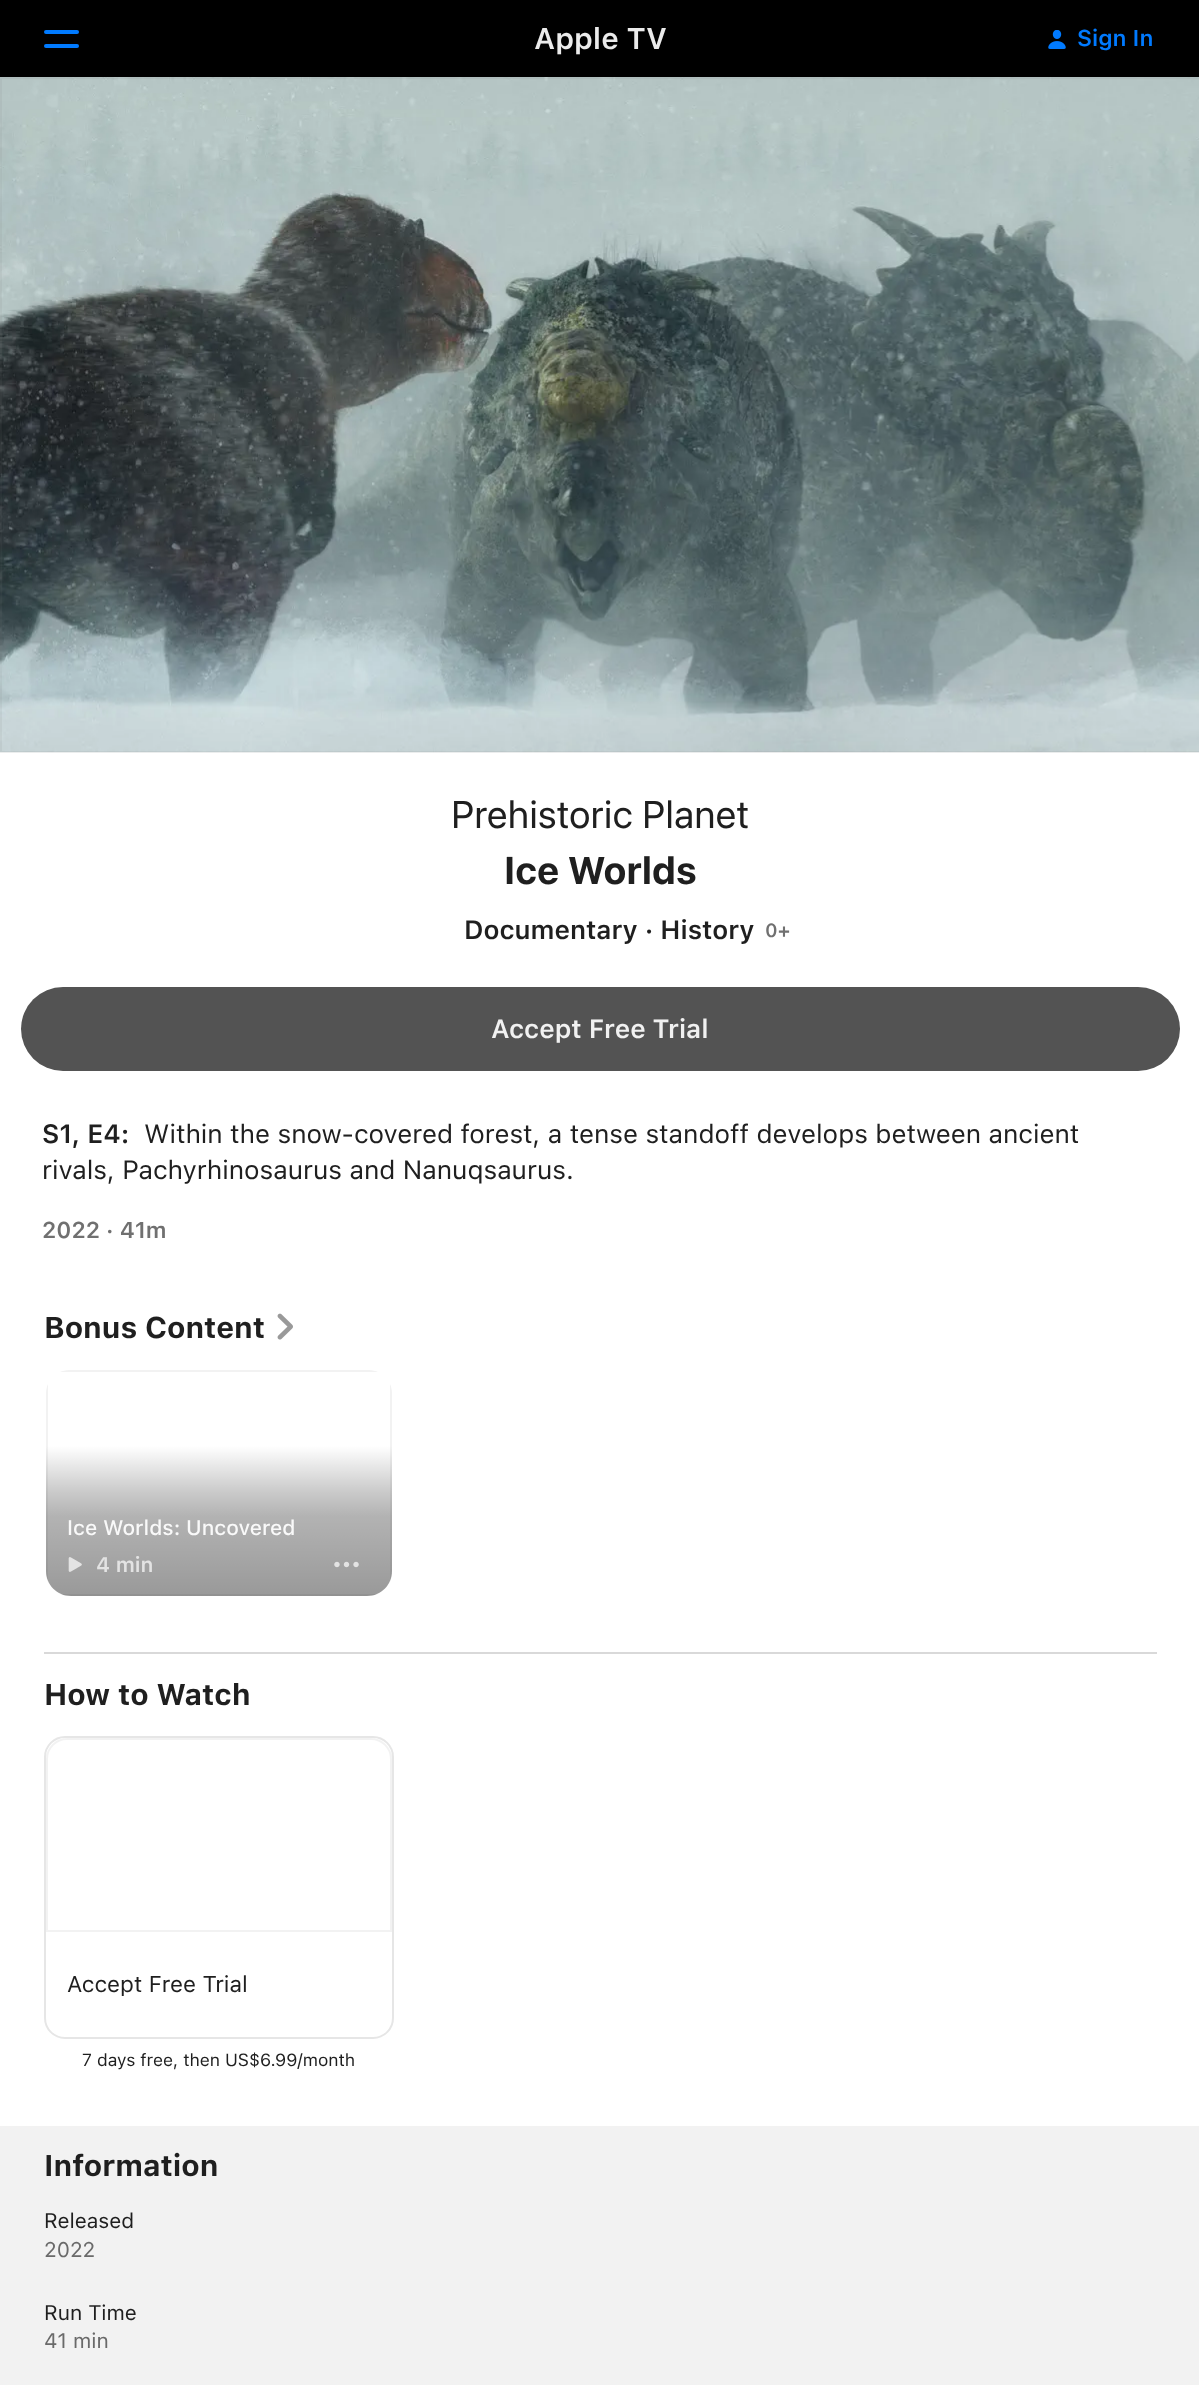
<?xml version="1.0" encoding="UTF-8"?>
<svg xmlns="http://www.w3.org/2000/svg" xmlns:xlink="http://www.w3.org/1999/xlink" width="1199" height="2385">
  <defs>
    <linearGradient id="g1" gradientUnits="userSpaceOnUse" x1="219" y1="1446" x2="219" y2="1596"><stop offset="0" stop-color="#000000" stop-opacity="0" /><stop offset="0.19" stop-color="#000000" stop-opacity="0.13" /><stop offset="0.31" stop-color="#000000" stop-opacity="0.21" /><stop offset="0.47" stop-color="#000000" stop-opacity="0.3" /><stop offset="1" stop-color="#000000" stop-opacity="0.4" /></linearGradient>
  </defs>
  <rect width="100%" height="100%" fill="#ffffff" />
  <rect width="1199" height="77" fill="#000000" />
  <rect x="44" y="30" width="35" height="4" rx="2" fill="#007aff" />
  <rect x="44" y="44" width="35" height="4" rx="2" fill="#007aff" />
  <image x="1048" y="30" width="18" height="19" xlink:href="image1.png" />
  <image x="0" y="77" width="1199" height="676" xlink:href="image2.png" />
  <rect x="1" y="78" width="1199" height="674" fill="none" stroke="#808080" stroke-opacity="0.1" stroke-width="2" />
  <rect x="21" y="987" width="1159" height="84" rx="42" fill="#535353" />
  <image x="277" y="1313" width="16" height="27" xlink:href="image3.png" />
  <path d="M 46 1393 v 180 c 0 3 1 7 2 9 v -198 c -1 2 -2 6 -2 9 z m 23 -23 c -3 0 -7 1 -9 2 h 318 c -2 -1 -6 -2 -9 -2 z m 323 23 c 0 -3 -1 -7 -2 -9 v 198 c 1 -2 2 -6 2 -9 z m -23 203 c 3 0 7 -1 9 -2 h -318 c 2 1 6 2 9 2 z" fill="#f2f2f2" fill-rule="evenodd" />
  <path d="M 46 1446 h 346 v 125 c 0 14 -11 25 -25 25 h -296 c -14 0 -25 -11 -25 -25 z" fill="url(#g1)" />
  <image x="68" y="1557" width="14" height="15" xlink:href="image4.png" />
  <image x="334" y="1561" width="25" height="7" xlink:href="image5.png" />
  <rect x="44" y="1652" width="1113" height="2" fill="#d9d9d9" />
  <rect x="45" y="1737" width="348" height="301" rx="20" fill="none" stroke="#808080" stroke-opacity="0.2" stroke-width="2" />
  <path d="M 67 1739 h 304 c 11 0 20 9 20 20 v 172 h -344 v -172 c 0 -11 9 -20 20 -20 z" fill="none" stroke="#808080" stroke-opacity="0.1" stroke-width="2" />
  <rect y="2126" width="1199" height="259" fill="#f2f2f2" />
  <text x="534" y="49" style="font-family: SF; font-size: 29.75px; font-weight: 600; fill: #ebebeb">Apple TV</text>
  <text x="1077" y="46" style="font-family: SF; font-size: 22.75px; font-weight: 600; fill: #007aff">Sign In</text>
  <text x="451" y="828" style="font-family: 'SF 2'; font-size: 38.5px; fill: #1f1f1f">Prehistoric Planet</text>
  <text x="504" y="884" style="font-family: 'SF 2'; font-size: 38.5px; font-weight: bold; fill: #1f1f1f">Ice Worlds</text>
  <text x="464" y="939" style="font-family: SF; font-size: 26.25px; font-weight: 600; fill: #1f1f1f">Documentary · History</text>
  <text x="765" y="937" style="font-family: SF; font-size: 19px; font-weight: 600; fill: #707070">0+</text>
  <text x="491" y="1038" style="font-family: SF; font-size: 26.25px; font-weight: 600; fill: #f1f1f1">Accept Free Trial</text>
  <text x="42" y="1143" style="font-family: SF; font-size: 26.25px; font-weight: 600; fill: #1f1f1f">S1, E4:</text>
  <text x="144" y="1143" style="font-family: SF; font-size: 26.25px; fill: #1f1f1f">Within the snow-covered forest, a tense standoff develops between ancient</text>
  <text x="42" y="1179" style="font-family: SF; font-size: 26.25px; fill: #1f1f1f">rivals, Pachyrhinosaurus and Nanuqsaurus.</text>
  <text x="42" y="1238" style="font-family: SF; font-size: 22.75px; font-weight: 600; fill: #707070">2022 · 41m</text>
  <text x="44" y="1338" style="font-family: SF; font-size: 29.75px; font-weight: bold; fill: #1f1f1f">Bonus Content</text>
  <text x="67" y="1535" style="font-family: SF; font-size: 21px; font-weight: 500; fill: #f9f9f9">Ice Worlds: Uncovered</text>
  <text x="96" y="1572" style="font-family: SF; font-size: 21px; font-weight: 600; fill: #e3e3e3">4 min</text>
  <text x="44" y="1705" style="font-family: SF; font-size: 29.75px; font-weight: bold; fill: #1f1f1f">How to Watch</text>
  <text x="67" y="1992" style="font-family: SF; font-size: 22.75px; fill: #1f1f1f">Accept Free Trial</text>
  <text x="82" y="2066" style="font-family: SF; font-size: 17.5px; fill: #1f1f1f">7 days free, then US$6.99/month</text>
  <text x="44" y="2176" style="font-family: SF; font-size: 29.75px; font-weight: bold; fill: #1f1f1f">Information</text>
  <text x="44" y="2228" style="font-family: SF; font-size: 21px; fill: #1f1f1f">Released</text>
  <text x="44" y="2257" style="font-family: SF; font-size: 21px; fill: #6a6a6a">2022</text>
  <text x="44" y="2320" style="font-family: SF; font-size: 21px; fill: #1f1f1f">Run Time</text>
  <text x="44" y="2348" style="font-family: SF; font-size: 21px; fill: #6a6a6a">41 min</text>
</svg>
